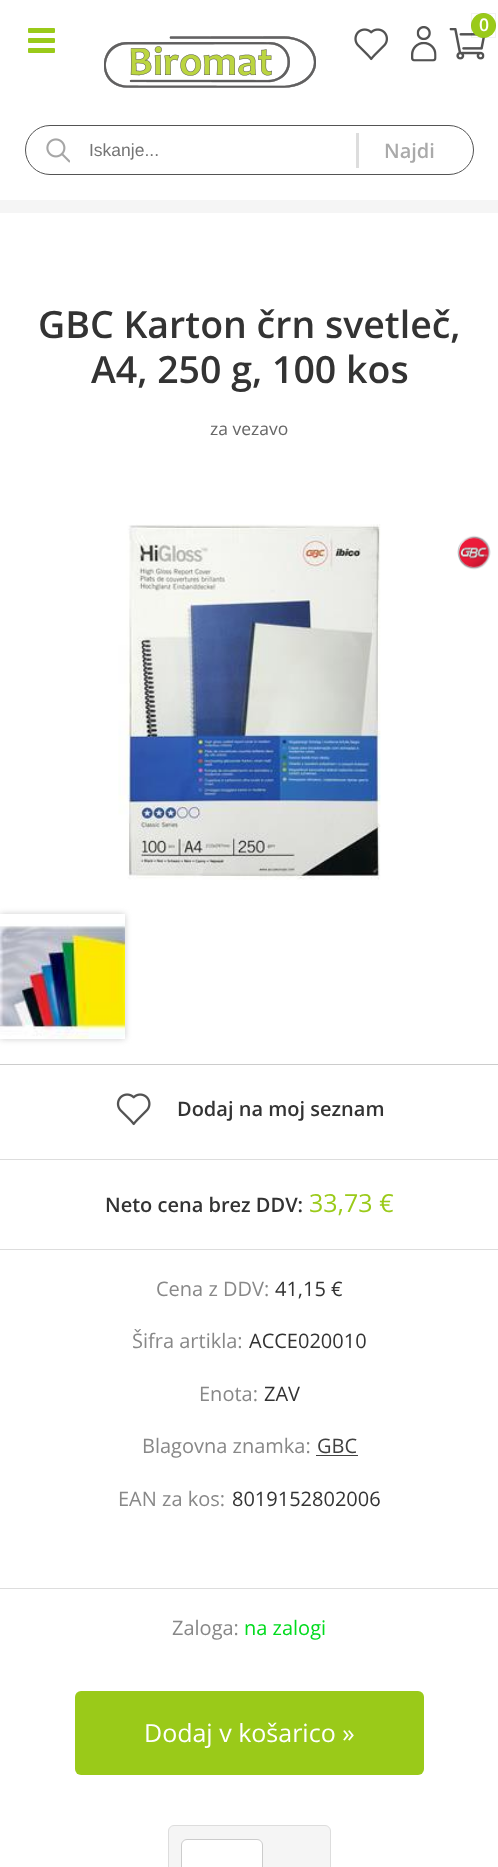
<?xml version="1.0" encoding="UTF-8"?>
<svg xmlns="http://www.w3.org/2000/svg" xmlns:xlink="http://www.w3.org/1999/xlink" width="498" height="1867">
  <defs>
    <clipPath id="clip1"><path d="M 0 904 h 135 v 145 h -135 z m 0 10 h 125 v 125 h -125 z" clip-rule="evenodd" /></clipPath>
  </defs>
  <rect width="100%" height="100%" fill="#ffffff" />
  <rect y="200" width="498" height="13" fill="#f5f5f5" />
  <image x="354" y="28" width="34" height="33" xlink:href="image1.png" />
  <image x="411" y="26" width="26" height="36" xlink:href="image2.png" />
  <image x="449" y="28" width="37" height="32" xlink:href="image3.png" />
  <circle cx="483.5" cy="25.5" r="12.5" fill="#9aca19" />
  <rect x="471.5" y="13.5" width="24" height="24" fill="none" stroke="#000000" stroke-opacity="0.05" />
  <rect x="28" y="28" width="27" height="5" rx="1" fill="#9aca19" />
  <rect x="28" y="38" width="27" height="5" rx="1" fill="#9aca19" />
  <rect x="28" y="48" width="27" height="5" rx="1" fill="#9aca19" />
  <image x="104" y="36" width="212" height="52" xlink:href="image4.png" />
  <image x="46" y="138" width="24" height="25" xlink:href="image5.png" />
  <rect x="25.5" y="125.5" width="448" height="49" rx="24.5" fill="none" stroke="#535353" />
  <rect x="356" y="133" width="3" height="35" fill="#dddddd" />
  <image x="118" y="524" width="263" height="356" xlink:href="image6.png" />
  <image x="457" y="535" width="34" height="35" xlink:href="image7.png" />
  <g clip-path="url(#clip1)">
    <rect y="914" width="125" height="125" fill="#cccccc" filter="blur(3px)" />
  </g>
  <image x="0" y="923" width="125" height="116" xlink:href="image8.png" />
  <rect y="1064" width="498" height="1" fill="#cccccc" />
  <image x="116" y="1093" width="35" height="33" xlink:href="image9.png" />
  <rect y="1159" width="498" height="1" fill="#dddddd" />
  <rect y="1249" width="498" height="1" fill="#dddddd" />
  <rect x="316" y="1455" width="42" height="1" fill="#404040" />
  <rect y="1588" width="498" height="1" fill="#dddddd" />
  <rect x="75" y="1691" width="349" height="84" rx="6" fill="#9aca19" />
  <rect x="168.5" y="1825.5" width="162" height="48" rx="5.5" fill="#f5f5f5" stroke="#dddddd" />
  <rect x="181.5" y="1839.5" width="81" height="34" rx="5.5" fill="#ffffff" stroke="#cccccc" />
  <text x="479" y="31" style="font-family: Open Sans; font-size: 17.5px; font-weight: 600; fill: #ffffff">0</text>
  <text x="89" y="156" style="font-family: Liberation Sans; font-size: 17.5px; fill: #757575">Iskanje...</text>
  <text x="384" y="158" style="font-family: Open Sans; font-size: 20px; font-weight: 600; fill: #aaaaaa">Najdi</text>
  <text x="38" y="338" style="font-family: Open Sans; font-size: 37.5px; font-weight: 600; fill: #333333">GBC Karton črn svetleč,</text>
  <text x="91" y="383" style="font-family: Open Sans; font-size: 37.5px; font-weight: 600; fill: #333333">A4, 250 g, 100 kos</text>
  <text x="210" y="435" style="font-family: Open Sans; font-size: 17.5px; fill: #666666">za vezavo</text>
  <text x="177" y="1116" style="font-family: Open Sans; font-size: 20px; font-weight: 600; fill: #333333">Dodaj na moj seznam</text>
  <text x="105" y="1212" style="font-family: Open Sans; font-size: 20px; font-weight: 600; fill: #333333">Neto cena brez DDV:</text>
  <text x="309" y="1212" style="font-family: Open Sans; font-size: 25px; fill: #9aca19">33,73 €</text>
  <text x="156" y="1296" style="font-family: Open Sans; font-size: 20px; fill: #888888">Cena z DDV:</text>
  <text x="275" y="1296" style="font-family: Open Sans; font-size: 20px; fill: #333333">41,15 €</text>
  <text x="132" y="1348" style="font-family: Open Sans; font-size: 20px; fill: #888888">Šifra artikla:</text>
  <text x="249" y="1348" style="font-family: Open Sans; font-size: 20px; fill: #333333">ACCE020010</text>
  <text x="199" y="1401" style="font-family: Open Sans; font-size: 20px; fill: #888888">Enota:</text>
  <text x="264" y="1401" style="font-family: Open Sans; font-size: 20px; fill: #333333">ZAV</text>
  <text x="142" y="1453" style="font-family: Open Sans; font-size: 20px; fill: #888888">Blagovna znamka:</text>
  <text x="317" y="1453" style="font-family: Open Sans; font-size: 20px; fill: #404040">GBC</text>
  <text x="118" y="1506" style="font-family: Open Sans; font-size: 20px; fill: #888888">EAN za kos:</text>
  <text x="232" y="1506" style="font-family: Open Sans; font-size: 20px; fill: #333333">8019152802006</text>
  <text x="172" y="1635" style="font-family: Open Sans; font-size: 20px; fill: #888888">Zaloga:</text>
  <text x="244" y="1635" style="font-family: Open Sans; font-size: 20px; fill: #00db1d">na zalogi</text>
  <text x="144" y="1742" style="font-family: Open Sans; font-size: 25px; fill: #ffffff">Dodaj v košarico »</text>
</svg>
